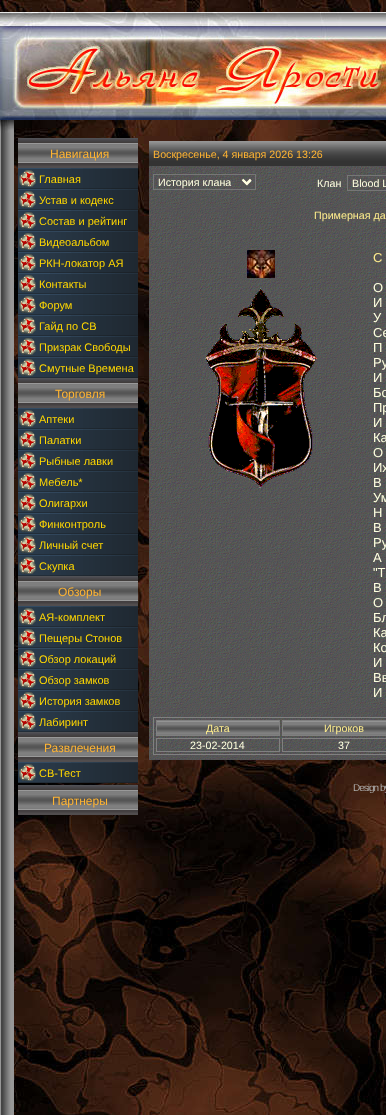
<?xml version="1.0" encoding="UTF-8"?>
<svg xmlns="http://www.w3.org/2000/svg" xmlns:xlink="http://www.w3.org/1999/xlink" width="386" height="1115">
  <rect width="100%" height="100%" fill="#ffffff" />
  <image x="0" y="0" width="386" height="1115" xlink:href="image1.png" />
  <image x="0" y="12" width="386" height="108" xlink:href="image2.png" />
  <image x="0" y="120" width="14" height="16" xlink:href="image3.png" />
  <image x="0" y="136" width="14" height="979" xlink:href="image4.png" />
  <image x="18" y="138" width="120" height="5" xlink:href="image5.png" />
  <image x="18" y="143" width="120" height="20" xlink:href="image6.png" />
  <image x="18" y="163" width="120" height="5" xlink:href="image7.png" />
  <image x="18" y="168" width="120" height="210" xlink:href="image8.png" />
  <image x="18" y="378" width="120" height="5" xlink:href="image5.png" />
  <image x="18" y="383" width="120" height="20" xlink:href="image6.png" />
  <image x="18" y="403" width="120" height="5" xlink:href="image7.png" />
  <image x="18" y="408" width="120" height="168" xlink:href="image9.png" />
  <image x="18" y="576" width="120" height="5" xlink:href="image5.png" />
  <image x="18" y="581" width="120" height="20" xlink:href="image6.png" />
  <image x="18" y="601" width="120" height="5" xlink:href="image7.png" />
  <image x="18" y="606" width="120" height="126" xlink:href="image10.png" />
  <image x="18" y="732" width="120" height="5" xlink:href="image5.png" />
  <image x="18" y="737" width="120" height="20" xlink:href="image6.png" />
  <image x="18" y="757" width="120" height="5" xlink:href="image7.png" />
  <image x="18" y="762" width="120" height="21" xlink:href="image11.png" />
  <image x="18" y="785" width="120" height="5" xlink:href="image5.png" />
  <image x="18" y="790" width="120" height="20" xlink:href="image6.png" />
  <image x="18" y="810" width="120" height="5" xlink:href="image7.png" />
  <image x="149" y="141" width="237" height="25" xlink:href="image12.png" />
  <image x="149" y="166" width="237" height="594" xlink:href="image13.png" />
  <image x="154" y="175" width="101" height="14" xlink:href="image14.png" />
  <rect x="153.5" y="174.5" width="102" height="15" fill="none" stroke="#767676" />
  <path d="M 242.5 179.5 l 4 4 l 4 -4" fill="none" stroke="#ffffe0" stroke-width="2" />
  <image x="348" y="176" width="38" height="14" xlink:href="image15.png" />
  <rect x="347.5" y="175.5" width="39" height="15" fill="none" stroke="#767676" />
  <image x="247" y="250" width="28" height="28" xlink:href="image16.png" />
  <image x="205" y="288" width="112" height="200" xlink:href="image17.png" />
  <rect x="153.5" y="717.5" width="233" height="37" fill="none" stroke="#808080" />
  <image x="157" y="721" width="122" height="14" xlink:href="image18.png" />
  <rect x="156.5" y="720.5" width="123" height="15" fill="none" stroke="#808080" />
  <image x="283" y="721" width="103" height="14" xlink:href="image19.png" />
  <rect x="282.5" y="720.5" width="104" height="15" fill="none" stroke="#808080" />
  <rect x="156.5" y="738.5" width="123" height="13" fill="none" stroke="#808080" />
  <rect x="282.5" y="738.5" width="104" height="13" fill="none" stroke="#808080" />
  <text x="50" y="158" style="font-family: Liberation Sans; font-size: 12px; fill: #ffb432">Навигация</text>
  <text x="39" y="183" style="font-family: Liberation Sans; font-size: 11px; fill: #ffd700">Главная</text>
  <text x="39" y="204" style="font-family: Liberation Sans; font-size: 11px; fill: #ffd700">Устав и кодекс</text>
  <text x="39" y="225" style="font-family: Liberation Sans; font-size: 11px; fill: #ffd700">Состав и рейтинг</text>
  <text x="39" y="246" style="font-family: Liberation Sans; font-size: 11px; fill: #ffd700">Видеоальбом</text>
  <text x="39" y="267" style="font-family: Liberation Sans; font-size: 11px; fill: #ffd700">РКН-локатор АЯ</text>
  <text x="39" y="288" style="font-family: Liberation Sans; font-size: 11px; fill: #ffd700">Контакты</text>
  <text x="39" y="309" style="font-family: Liberation Sans; font-size: 11px; fill: #ffd700">Форум</text>
  <text x="39" y="330" style="font-family: Liberation Sans; font-size: 11px; fill: #ffd700">Гайд по СВ</text>
  <text x="39" y="351" style="font-family: Liberation Sans; font-size: 11px; fill: #ffd700">Призрак Свободы</text>
  <text x="39" y="372" style="font-family: Liberation Sans; font-size: 11px; fill: #ffd700">Смутные Времена</text>
  <text x="55" y="398" style="font-family: Liberation Sans; font-size: 12px; fill: #ffb432">Торговля</text>
  <text x="39" y="423" style="font-family: Liberation Sans; font-size: 11px; fill: #ffd700">Аптеки</text>
  <text x="39" y="444" style="font-family: Liberation Sans; font-size: 11px; fill: #ffd700">Палатки</text>
  <text x="39" y="465" style="font-family: Liberation Sans; font-size: 11px; fill: #ffd700">Рыбные лавки</text>
  <text x="39" y="486" style="font-family: Liberation Sans; font-size: 11px; fill: #ffd700">Мебель*</text>
  <text x="39" y="507" style="font-family: Liberation Sans; font-size: 11px; fill: #ffd700">Олигархи</text>
  <text x="39" y="528" style="font-family: Liberation Sans; font-size: 11px; fill: #ffd700">Финконтроль</text>
  <text x="39" y="549" style="font-family: Liberation Sans; font-size: 11px; fill: #ffd700">Личный счет</text>
  <text x="39" y="570" style="font-family: Liberation Sans; font-size: 11px; fill: #ffd700">Скупка</text>
  <text x="58" y="596" style="font-family: Liberation Sans; font-size: 12px; fill: #ffb432">Обзоры</text>
  <text x="39" y="621" style="font-family: Liberation Sans; font-size: 11px; fill: #ffd700">АЯ-комплект</text>
  <text x="39" y="642" style="font-family: Liberation Sans; font-size: 11px; fill: #ffd700">Пещеры Стонов</text>
  <text x="39" y="663" style="font-family: Liberation Sans; font-size: 11px; fill: #ffd700">Обзор локаций</text>
  <text x="39" y="684" style="font-family: Liberation Sans; font-size: 11px; fill: #ffd700">Обзор замков</text>
  <text x="39" y="705" style="font-family: Liberation Sans; font-size: 11px; fill: #ffd700">История замков</text>
  <text x="39" y="726" style="font-family: Liberation Sans; font-size: 11px; fill: #ffd700">Лабиринт</text>
  <text x="44" y="752" style="font-family: Liberation Sans; font-size: 12px; fill: #ffb432">Развлечения</text>
  <text x="39" y="777" style="font-family: Liberation Sans; font-size: 11px; fill: #ffd700">СВ-Тест</text>
  <text x="52" y="805" style="font-family: Liberation Sans; font-size: 12px; fill: #ffb432">Партнеры</text>
  <text x="153" y="158" style="font-family: Liberation Sans; font-size: 10.7px; fill: #ffb432">Воскресенье, 4 января 2026 13:26</text>
  <text x="158" y="186" style="font-family: Liberation Sans; font-size: 10.7px; fill: #ffffe0">История клана</text>
  <text x="317" y="187" style="font-family: Liberation Sans; font-size: 10.7px; fill: #ffffe0">Клан</text>
  <text x="352" y="187" style="font-family: Liberation Sans; font-size: 10.7px; fill: #ffffe0">Blood L</text>
  <text x="314" y="219" style="font-family: Liberation Sans; font-size: 10.7px; fill: #feed8d">Примерная да</text>
  <text x="373" y="262" style="font-family: Liberation Sans; font-size: 13px; fill: #feed8d">С</text>
  <text x="373" y="292" style="font-family: Liberation Sans; font-size: 13px; fill: #ffffe0">О</text>
  <text x="373" y="307" style="font-family: Liberation Sans; font-size: 13px; fill: #ffffe0">И</text>
  <text x="373" y="322" style="font-family: Liberation Sans; font-size: 13px; fill: #ffffe0">У</text>
  <text x="373" y="337" style="font-family: Liberation Sans; font-size: 13px; fill: #ffffe0">Се</text>
  <text x="373" y="352" style="font-family: Liberation Sans; font-size: 13px; fill: #ffffe0">П</text>
  <text x="373" y="367" style="font-family: Liberation Sans; font-size: 13px; fill: #ffffe0">Ру</text>
  <text x="373" y="382" style="font-family: Liberation Sans; font-size: 13px; fill: #ffffe0">И</text>
  <text x="373" y="397" style="font-family: Liberation Sans; font-size: 13px; fill: #ffffe0">Бо</text>
  <text x="373" y="412" style="font-family: Liberation Sans; font-size: 13px; fill: #ffffe0">Пр</text>
  <text x="373" y="427" style="font-family: Liberation Sans; font-size: 13px; fill: #ffffe0">И</text>
  <text x="373" y="442" style="font-family: Liberation Sans; font-size: 13px; fill: #ffffe0">Ка</text>
  <text x="373" y="457" style="font-family: Liberation Sans; font-size: 13px; fill: #ffffe0">О</text>
  <text x="373" y="472" style="font-family: Liberation Sans; font-size: 13px; fill: #ffffe0">Их</text>
  <text x="373" y="487" style="font-family: Liberation Sans; font-size: 13px; fill: #ffffe0">В</text>
  <text x="373" y="502" style="font-family: Liberation Sans; font-size: 13px; fill: #ffffe0">Ум</text>
  <text x="373" y="517" style="font-family: Liberation Sans; font-size: 13px; fill: #ffffe0">Н</text>
  <text x="373" y="532" style="font-family: Liberation Sans; font-size: 13px; fill: #ffffe0">В</text>
  <text x="373" y="547" style="font-family: Liberation Sans; font-size: 13px; fill: #ffffe0">Ру</text>
  <text x="373" y="562" style="font-family: Liberation Sans; font-size: 13px; fill: #ffffe0">А</text>
  <text x="373" y="577" style="font-family: Liberation Sans; font-size: 13px; fill: #ffffe0">"Т</text>
  <text x="373" y="592" style="font-family: Liberation Sans; font-size: 13px; fill: #ffffe0">В</text>
  <text x="373" y="607" style="font-family: Liberation Sans; font-size: 13px; fill: #ffffe0">О</text>
  <text x="373" y="622" style="font-family: Liberation Sans; font-size: 13px; fill: #ffffe0">Бл</text>
  <text x="373" y="637" style="font-family: Liberation Sans; font-size: 13px; fill: #ffffe0">Ка</text>
  <text x="373" y="652" style="font-family: Liberation Sans; font-size: 13px; fill: #ffffe0">Ко</text>
  <text x="373" y="667" style="font-family: Liberation Sans; font-size: 13px; fill: #ffffe0">И</text>
  <text x="373" y="682" style="font-family: Liberation Sans; font-size: 13px; fill: #ffffe0">Вв</text>
  <text x="373" y="697" style="font-family: Liberation Sans; font-size: 13px; fill: #ffffe0">И</text>
  <text x="206" y="732" style="font-family: Liberation Sans; font-size: 10.7px; fill: #feed8d">Дата</text>
  <text x="324" y="732" style="font-family: Liberation Sans; font-size: 10.7px; fill: #feed8d">Игроков</text>
  <text x="190" y="749" style="font-family: Liberation Sans; font-size: 10.7px; fill: #ffffe0">23-02-2014</text>
  <text x="338" y="749" style="font-family: Liberation Sans; font-size: 10.7px; fill: #ffffe0">37</text>
  <text x="353" y="791" style="font-family: Liberation Sans; font-size: 10px; letter-spacing: -1px; fill: #aaaaaa">Design by</text>
</svg>
